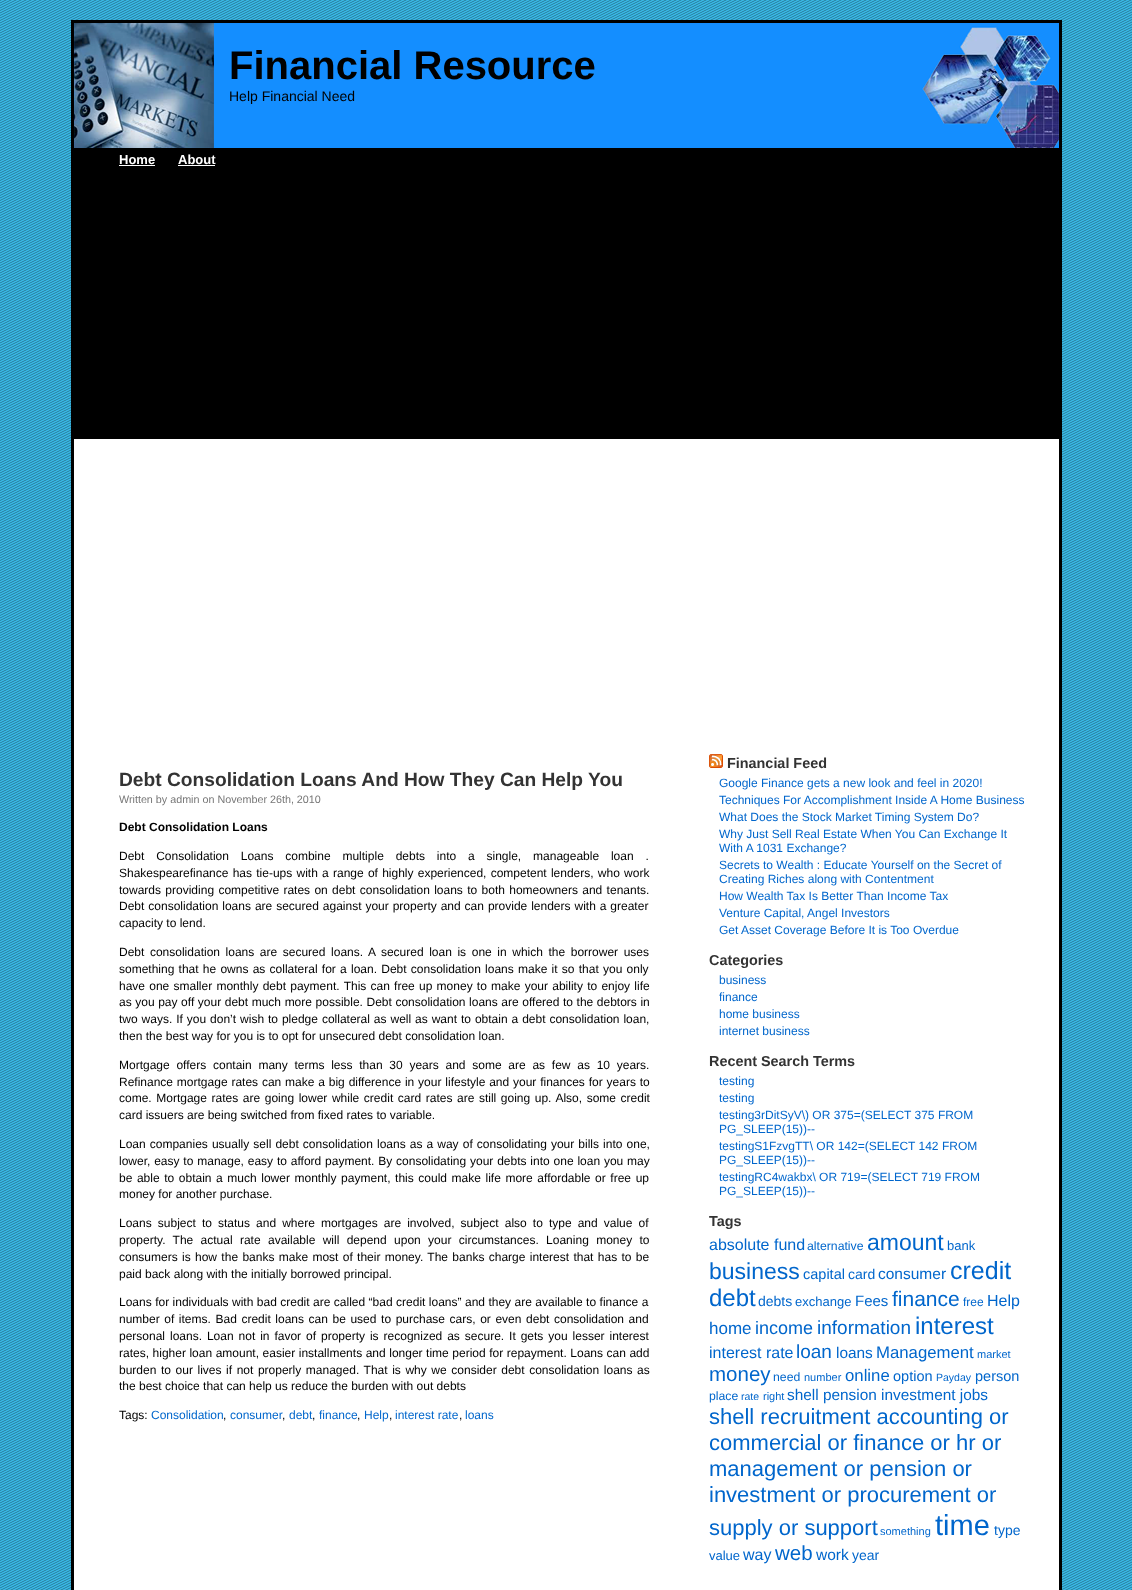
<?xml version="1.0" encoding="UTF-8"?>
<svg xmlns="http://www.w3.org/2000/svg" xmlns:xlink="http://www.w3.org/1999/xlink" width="1132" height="1590">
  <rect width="100%" height="100%" fill="#ffffff" />
  <image x="0" y="0" width="1132" height="1590" xlink:href="image1.png" />
  <rect x="74" y="439" width="985" height="1151" fill="#ffffff" />
  <rect x="72.5" y="21.5" width="988" height="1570" fill="none" stroke="#000000" stroke-width="3" />
  <image x="74" y="23" width="985" height="125" xlink:href="image2.png" />
  <rect x="74" y="148" width="985" height="291" fill="#000000" />
  <rect x="119" y="165" width="36" height="1" fill="#ffffff" />
  <rect x="178" y="165" width="37" height="1" fill="#ffffff" />
  <image x="709" y="754" width="14" height="14" xlink:href="image3.png" />
  <text x="229" y="79" style="font-family: Liberation Sans; font-size: 40px; font-weight: bold; fill: #000000">Financial Resource</text>
  <text x="229" y="101" style="font-family: Liberation Sans; font-size: 14px; fill: #000000">Help Financial Need</text>
  <text x="119" y="164" style="font-family: Liberation Sans; font-size: 13px; font-weight: bold; fill: #ffffff">Home</text>
  <text x="178" y="164" style="font-family: Liberation Sans; font-size: 13px; font-weight: bold; fill: #ffffff">About</text>
  <text x="119" y="786" style="font-family: Liberation Sans; font-size: 19.2px; font-weight: bold; fill: #333333">Debt Consolidation Loans And How They Can Help You</text>
  <text x="119" y="803" style="font-family: Liberation Sans; font-size: 10.75px; fill: #777777">Written by admin on November 26th, 2010</text>
  <text x="119" y="831" style="font-family: Liberation Sans; font-size: 12px; font-weight: bold; fill: #000000">Debt Consolidation Loans</text>
  <text x="119" y="860" word-spacing="8.5" style="font-family: Liberation Sans; font-size: 12px; fill: #000000">Debt Consolidation Loans combine multiple debts into a single, manageable loan .</text>
  <text x="119" y="877" word-spacing="0.9" style="font-family: Liberation Sans; font-size: 12px; fill: #000000">Shakespearefinance has tie-ups with a range of highly experienced, competent lenders, who work</text>
  <text x="119" y="894" word-spacing="1" style="font-family: Liberation Sans; font-size: 12px; fill: #000000">towards providing competitive rates on debt consolidation loans to both homeowners and tenants.</text>
  <text x="119" y="910" word-spacing="0.6" style="font-family: Liberation Sans; font-size: 12px; fill: #000000">Debt consolidation loans are secured against your property and can provide lenders with a greater</text>
  <text x="119" y="927" style="font-family: Liberation Sans; font-size: 12px; fill: #000000">capacity to lend.</text>
  <text x="119" y="956" word-spacing="2.25" style="font-family: Liberation Sans; font-size: 12px; fill: #000000">Debt consolidation loans are secured loans. A secured loan is one in which the borrower uses</text>
  <text x="119" y="973" word-spacing="0.9" style="font-family: Liberation Sans; font-size: 12px; fill: #000000">something that he owns as collateral for a loan. Debt consolidation loans make it so that you only</text>
  <text x="119" y="990" word-spacing="0.9" style="font-family: Liberation Sans; font-size: 12px; fill: #000000">have one smaller monthly debt payment. This can free up money to make your ability to enjoy life</text>
  <text x="119" y="1006" word-spacing="0.25" style="font-family: Liberation Sans; font-size: 12px; fill: #000000">as you pay off your debt much more possible. Debt consolidation loans are offered to the debtors in</text>
  <text x="119" y="1023" word-spacing="0.6" style="font-family: Liberation Sans; font-size: 12px; fill: #000000">two ways. If you don’t wish to pledge collateral as well as want to obtain a debt consolidation loan,</text>
  <text x="119" y="1040" style="font-family: Liberation Sans; font-size: 12px; fill: #000000">then the best way for you is to opt for unsecured debt consolidation loan.</text>
  <text x="119" y="1069" word-spacing="3.4" style="font-family: Liberation Sans; font-size: 12px; fill: #000000">Mortgage offers contain many terms less than 30 years and some are as few as 10 years.</text>
  <text x="119" y="1086" word-spacing="0.5" style="font-family: Liberation Sans; font-size: 12px; fill: #000000">Refinance mortgage rates can make a big difference in your lifestyle and your finances for years to</text>
  <text x="119" y="1102" word-spacing="1.25" style="font-family: Liberation Sans; font-size: 12px; fill: #000000">come. Mortgage rates are going lower while credit card rates are still going up. Also, some credit</text>
  <text x="119" y="1119" style="font-family: Liberation Sans; font-size: 12px; fill: #000000">card issuers are being switched from fixed rates to variable.</text>
  <text x="119" y="1148" word-spacing="0.75" style="font-family: Liberation Sans; font-size: 12px; fill: #000000">Loan companies usually sell debt consolidation loans as a way of consolidating your bills into one,</text>
  <text x="119" y="1165" word-spacing="0.5" style="font-family: Liberation Sans; font-size: 12px; fill: #000000">lower, easy to manage, easy to afford payment. By consolidating your debts into one loan you may</text>
  <text x="119" y="1182" word-spacing="1.25" style="font-family: Liberation Sans; font-size: 12px; fill: #000000">be able to obtain a much lower monthly payment, this could make life more affordable or free up</text>
  <text x="119" y="1198" style="font-family: Liberation Sans; font-size: 12px; fill: #000000">money for another purchase.</text>
  <text x="119" y="1227" word-spacing="2.75" style="font-family: Liberation Sans; font-size: 12px; fill: #000000">Loans subject to status and where mortgages are involved, subject also to type and value of</text>
  <text x="119" y="1244" word-spacing="4" style="font-family: Liberation Sans; font-size: 12px; fill: #000000">property. The actual rate available will depend upon your circumstances. Loaning money to</text>
  <text x="119" y="1261" word-spacing="1" style="font-family: Liberation Sans; font-size: 12px; fill: #000000">consumers is how the banks make most of their money. The banks charge interest that has to be</text>
  <text x="119" y="1278" style="font-family: Liberation Sans; font-size: 12px; fill: #000000">paid back along with the initially borrowed principal.</text>
  <text x="119" y="1306" word-spacing="0.1" style="font-family: Liberation Sans; font-size: 12px; fill: #000000">Loans for individuals with bad credit are called “bad credit loans” and they are available to finance a</text>
  <text x="119" y="1323" word-spacing="1.25" style="font-family: Liberation Sans; font-size: 12px; fill: #000000">number of items. Bad credit loans can be used to purchase cars, or even debt consolidation and</text>
  <text x="119" y="1340" word-spacing="1.6" style="font-family: Liberation Sans; font-size: 12px; fill: #000000">personal loans. Loan not in favor of property is recognized as secure. It gets you lesser interest</text>
  <text x="119" y="1357" word-spacing="0.2" style="font-family: Liberation Sans; font-size: 12px; fill: #000000">rates, higher loan amount, easier installments and longer time period for repayment. Loans can add</text>
  <text x="119" y="1374" word-spacing="1.25" style="font-family: Liberation Sans; font-size: 12px; fill: #000000">burden to our lives if not properly managed. That is why we consider debt consolidation loans as</text>
  <text x="119" y="1390" style="font-family: Liberation Sans; font-size: 12px; fill: #000000">the best choice that can help us reduce the burden with out debts</text>
  <text x="119" y="1419" style="font-family: Liberation Sans; font-size: 12px; fill: #000000">Tags:</text>
  <text x="151" y="1419" style="font-family: Liberation Sans; font-size: 12px; fill: #0066cc">Consolidation</text>
  <text x="223" y="1419" style="font-family: Liberation Sans; font-size: 12px; fill: #000000">,</text>
  <text x="230" y="1419" style="font-family: Liberation Sans; font-size: 12px; fill: #0066cc">consumer</text>
  <text x="282" y="1419" style="font-family: Liberation Sans; font-size: 12px; fill: #000000">,</text>
  <text x="289" y="1419" style="font-family: Liberation Sans; font-size: 12px; fill: #0066cc">debt</text>
  <text x="312" y="1419" style="font-family: Liberation Sans; font-size: 12px; fill: #000000">,</text>
  <text x="319" y="1419" style="font-family: Liberation Sans; font-size: 12px; fill: #0066cc">finance</text>
  <text x="357" y="1419" style="font-family: Liberation Sans; font-size: 12px; fill: #000000">,</text>
  <text x="364" y="1419" style="font-family: Liberation Sans; font-size: 12px; fill: #0066cc">Help</text>
  <text x="389" y="1419" style="font-family: Liberation Sans; font-size: 12px; fill: #000000">,</text>
  <text x="395" y="1419" style="font-family: Liberation Sans; font-size: 12px; fill: #0066cc">interest rate</text>
  <text x="459" y="1419" style="font-family: Liberation Sans; font-size: 12px; fill: #000000">,</text>
  <text x="465" y="1419" style="font-family: Liberation Sans; font-size: 12px; fill: #0066cc">loans</text>
  <text x="727" y="768" style="font-family: Liberation Sans; font-size: 14.4px; font-weight: bold; fill: #333333">Financial Feed</text>
  <text x="719" y="787" style="font-family: Liberation Sans; font-size: 12px; fill: #0066cc">Google Finance gets a new look and feel in 2020!</text>
  <text x="719" y="804" style="font-family: Liberation Sans; font-size: 12px; fill: #0066cc">Techniques For Accomplishment Inside A Home Business</text>
  <text x="719" y="821" style="font-family: Liberation Sans; font-size: 12px; fill: #0066cc">What Does the Stock Market Timing System Do?</text>
  <text x="719" y="838" style="font-family: Liberation Sans; font-size: 12px; fill: #0066cc">Why Just Sell Real Estate When You Can Exchange It</text>
  <text x="719" y="852" style="font-family: Liberation Sans; font-size: 12px; fill: #0066cc">With A 1031 Exchange?</text>
  <text x="719" y="869" style="font-family: Liberation Sans; font-size: 12px; fill: #0066cc">Secrets to Wealth : Educate Yourself on the Secret of</text>
  <text x="719" y="883" style="font-family: Liberation Sans; font-size: 12px; fill: #0066cc">Creating Riches along with Contentment</text>
  <text x="719" y="900" style="font-family: Liberation Sans; font-size: 12px; fill: #0066cc">How Wealth Tax Is Better Than Income Tax</text>
  <text x="719" y="917" style="font-family: Liberation Sans; font-size: 12px; fill: #0066cc">Venture Capital, Angel Investors</text>
  <text x="719" y="934" style="font-family: Liberation Sans; font-size: 12px; fill: #0066cc">Get Asset Coverage Before It is Too Overdue</text>
  <text x="709" y="965" style="font-family: Liberation Sans; font-size: 14.4px; font-weight: bold; fill: #333333">Categories</text>
  <text x="719" y="984" style="font-family: Liberation Sans; font-size: 12px; fill: #0066cc">business</text>
  <text x="719" y="1001" style="font-family: Liberation Sans; font-size: 12px; fill: #0066cc">finance</text>
  <text x="719" y="1018" style="font-family: Liberation Sans; font-size: 12px; fill: #0066cc">home business</text>
  <text x="719" y="1035" style="font-family: Liberation Sans; font-size: 12px; fill: #0066cc">internet business</text>
  <text x="709" y="1066" style="font-family: Liberation Sans; font-size: 14.4px; font-weight: bold; fill: #333333">Recent Search Terms</text>
  <text x="719" y="1085" style="font-family: Liberation Sans; font-size: 12px; fill: #0066cc">testing</text>
  <text x="719" y="1102" style="font-family: Liberation Sans; font-size: 12px; fill: #0066cc">testing</text>
  <text x="719" y="1119" style="font-family: Liberation Sans; font-size: 12px; fill: #0066cc">testing3rDitSyV\) OR 375=(SELECT 375 FROM</text>
  <text x="719" y="1133" style="font-family: Liberation Sans; font-size: 12px; fill: #0066cc">PG_SLEEP(15))--</text>
  <text x="719" y="1150" style="font-family: Liberation Sans; font-size: 12px; fill: #0066cc">testingS1FzvgTT\ OR 142=(SELECT 142 FROM</text>
  <text x="719" y="1164" style="font-family: Liberation Sans; font-size: 12px; fill: #0066cc">PG_SLEEP(15))--</text>
  <text x="719" y="1181" style="font-family: Liberation Sans; font-size: 12px; fill: #0066cc">testingRC4wakbx\ OR 719=(SELECT 719 FROM</text>
  <text x="719" y="1195" style="font-family: Liberation Sans; font-size: 12px; fill: #0066cc">PG_SLEEP(15))--</text>
  <text x="709" y="1226" style="font-family: Liberation Sans; font-size: 14.4px; font-weight: bold; fill: #333333">Tags</text>
  <text x="709" y="1250" style="font-family: Liberation Sans; font-size: 16px; fill: #0066cc">absolute fund</text>
  <text x="807" y="1250" style="font-family: Liberation Sans; font-size: 12.25px; fill: #0066cc">alternative</text>
  <text x="867" y="1250" style="font-family: Liberation Sans; font-size: 23px; fill: #0066cc">amount</text>
  <text x="947" y="1250" style="font-family: Liberation Sans; font-size: 13px; fill: #0066cc">bank</text>
  <text x="709" y="1279" style="font-family: Liberation Sans; font-size: 23px; fill: #0066cc">business</text>
  <text x="803" y="1279" style="font-family: Liberation Sans; font-size: 14.5px; fill: #0066cc">capital</text>
  <text x="848" y="1279" style="font-family: Liberation Sans; font-size: 14px; fill: #0066cc">card</text>
  <text x="878" y="1279" style="font-family: Liberation Sans; font-size: 15.5px; fill: #0066cc">consumer</text>
  <text x="950" y="1279" style="font-family: Liberation Sans; font-size: 25px; fill: #0066cc">credit</text>
  <text x="709" y="1306" style="font-family: Liberation Sans; font-size: 24px; fill: #0066cc">debt</text>
  <text x="758" y="1306" style="font-family: Liberation Sans; font-size: 14px; fill: #0066cc">debts</text>
  <text x="795" y="1306" style="font-family: Liberation Sans; font-size: 13px; fill: #0066cc">exchange</text>
  <text x="855" y="1306" style="font-family: Liberation Sans; font-size: 15px; fill: #0066cc">Fees</text>
  <text x="892" y="1306" style="font-family: Liberation Sans; font-size: 21px; fill: #0066cc">finance</text>
  <text x="963" y="1306" style="font-family: Liberation Sans; font-size: 12px; fill: #0066cc">free</text>
  <text x="987" y="1306" style="font-family: Liberation Sans; font-size: 16px; fill: #0066cc">Help</text>
  <text x="709" y="1334" style="font-family: Liberation Sans; font-size: 17px; fill: #0066cc">home</text>
  <text x="755" y="1334" style="font-family: Liberation Sans; font-size: 18px; fill: #0066cc">income</text>
  <text x="817" y="1334" style="font-family: Liberation Sans; font-size: 19px; fill: #0066cc">information</text>
  <text x="915" y="1334" style="font-family: Liberation Sans; font-size: 24px; fill: #0066cc">interest</text>
  <text x="709" y="1358" style="font-family: Liberation Sans; font-size: 16px; fill: #0066cc">interest rate</text>
  <text x="796" y="1358" style="font-family: Liberation Sans; font-size: 19px; fill: #0066cc">loan</text>
  <text x="836" y="1358" style="font-family: Liberation Sans; font-size: 15.4px; fill: #0066cc">loans</text>
  <text x="876" y="1358" style="font-family: Liberation Sans; font-size: 16.75px; fill: #0066cc">Management</text>
  <text x="977" y="1358" style="font-family: Liberation Sans; font-size: 11px; fill: #0066cc">market</text>
  <text x="709" y="1381" style="font-family: Liberation Sans; font-size: 20.5px; fill: #0066cc">money</text>
  <text x="773" y="1381" style="font-family: Liberation Sans; font-size: 12.25px; fill: #0066cc">need</text>
  <text x="804" y="1381" style="font-family: Liberation Sans; font-size: 11px; fill: #0066cc">number</text>
  <text x="845" y="1381" style="font-family: Liberation Sans; font-size: 16.75px; fill: #0066cc">online</text>
  <text x="893" y="1381" style="font-family: Liberation Sans; font-size: 14.5px; fill: #0066cc">option</text>
  <text x="936" y="1381" style="font-family: Liberation Sans; font-size: 10.5px; fill: #0066cc">Payday</text>
  <text x="975" y="1381" style="font-family: Liberation Sans; font-size: 14.5px; fill: #0066cc">person</text>
  <text x="709" y="1400" style="font-family: Liberation Sans; font-size: 12.25px; fill: #0066cc">place</text>
  <text x="741" y="1400" style="font-family: Liberation Sans; font-size: 10.5px; fill: #0066cc">rate</text>
  <text x="763" y="1400" style="font-family: Liberation Sans; font-size: 11px; fill: #0066cc">right</text>
  <text x="787" y="1400" style="font-family: Liberation Sans; font-size: 15.4px; fill: #0066cc">shell pension investment jobs</text>
  <text x="709" y="1424" style="font-family: Liberation Sans; font-size: 22px; fill: #0066cc">shell recruitment accounting or</text>
  <text x="709" y="1450" style="font-family: Liberation Sans; font-size: 22px; fill: #0066cc">commercial or finance or hr or</text>
  <text x="709" y="1476" style="font-family: Liberation Sans; font-size: 22px; fill: #0066cc">management or pension or</text>
  <text x="709" y="1502" style="font-family: Liberation Sans; font-size: 22px; fill: #0066cc">investment or procurement or</text>
  <text x="709" y="1535" style="font-family: Liberation Sans; font-size: 22px; fill: #0066cc">supply or support</text>
  <text x="880" y="1535" style="font-family: Liberation Sans; font-size: 11px; fill: #0066cc">something</text>
  <text x="935" y="1535" style="font-family: Liberation Sans; font-size: 29px; fill: #0066cc">time</text>
  <text x="994" y="1535" style="font-family: Liberation Sans; font-size: 14px; fill: #0066cc">type</text>
  <text x="709" y="1560" style="font-family: Liberation Sans; font-size: 13px; fill: #0066cc">value</text>
  <text x="743" y="1560" style="font-family: Liberation Sans; font-size: 16px; fill: #0066cc">way</text>
  <text x="775" y="1560" style="font-family: Liberation Sans; font-size: 20.5px; fill: #0066cc">web</text>
  <text x="816" y="1560" style="font-family: Liberation Sans; font-size: 15.5px; fill: #0066cc">work</text>
  <text x="852" y="1560" style="font-family: Liberation Sans; font-size: 14px; fill: #0066cc">year</text>
</svg>
